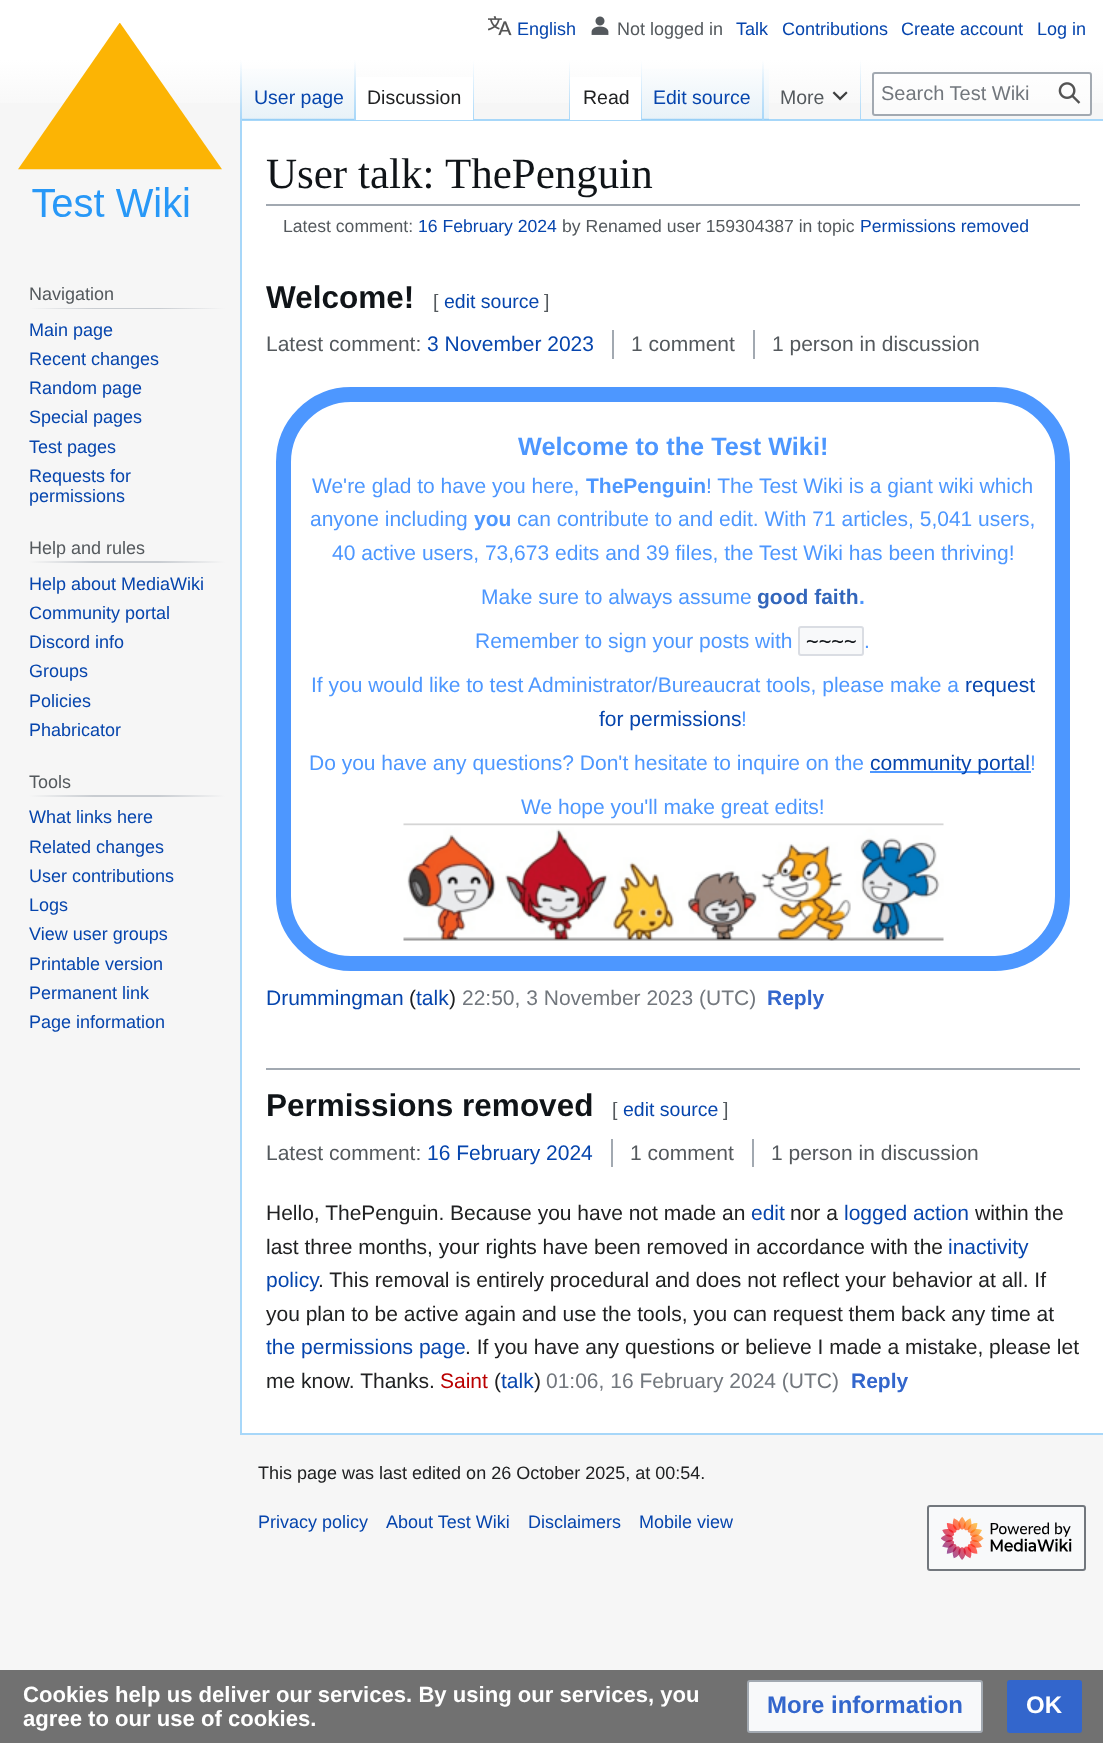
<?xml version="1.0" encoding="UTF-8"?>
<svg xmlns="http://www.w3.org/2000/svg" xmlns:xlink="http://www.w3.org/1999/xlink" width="1103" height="1743">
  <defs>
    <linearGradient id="g1" gradientUnits="userSpaceOnUse" x1="552" y1="0" x2="552" y2="120"><stop offset="0.5" stop-color="#ffffff" /><stop offset="1" stop-color="#f6f6f6" /></linearGradient>
    <linearGradient id="g2" gradientUnits="userSpaceOnUse" x1="241" y1="60" x2="241" y2="120"><stop offset="0" stop-color="#a7d7f9" stop-opacity="0" /><stop offset="1" stop-color="#a7d7f9" /></linearGradient>
    <linearGradient id="g3" gradientUnits="userSpaceOnUse" x1="299" y1="120" x2="299" y2="60"><stop offset="0" stop-color="#77c1f6" /><stop offset="0.03" stop-color="#e8f2f8" /><stop offset="1" stop-color="#ffffff" /></linearGradient>
    <linearGradient id="g4" gradientUnits="userSpaceOnUse" x1="355" y1="60" x2="355" y2="120"><stop offset="0" stop-color="#a7d7f9" stop-opacity="0" /><stop offset="1" stop-color="#a7d7f9" /></linearGradient>
    <linearGradient id="g5" gradientUnits="userSpaceOnUse" x1="473" y1="60" x2="473" y2="120"><stop offset="0" stop-color="#ffffff" /><stop offset="1" stop-color="#a7d7f9" /></linearGradient>
    <linearGradient id="g6" gradientUnits="userSpaceOnUse" x1="569" y1="60" x2="569" y2="120"><stop offset="0" stop-color="#a7d7f9" stop-opacity="0" /><stop offset="1" stop-color="#a7d7f9" /></linearGradient>
    <linearGradient id="g7" gradientUnits="userSpaceOnUse" x1="641" y1="60" x2="641" y2="120"><stop offset="0" stop-color="#ffffff" /><stop offset="1" stop-color="#a7d7f9" /></linearGradient>
    <linearGradient id="g8" gradientUnits="userSpaceOnUse" x1="703" y1="120" x2="703" y2="60"><stop offset="0" stop-color="#77c1f6" /><stop offset="0.03" stop-color="#e8f2f8" /><stop offset="1" stop-color="#ffffff" /></linearGradient>
    <linearGradient id="g9" gradientUnits="userSpaceOnUse" x1="763" y1="60" x2="763" y2="120"><stop offset="0" stop-color="#a7d7f9" stop-opacity="0" /><stop offset="1" stop-color="#a7d7f9" /></linearGradient>
    <linearGradient id="g10" gradientUnits="userSpaceOnUse" x1="766" y1="120" x2="766" y2="60"><stop offset="0" stop-color="#77c1f6" /><stop offset="0.03" stop-color="#e8f2f8" /><stop offset="1" stop-color="#ffffff" /></linearGradient>
    <linearGradient id="g11" gradientUnits="userSpaceOnUse" x1="860" y1="60" x2="860" y2="120"><stop offset="0" stop-color="#a7d7f9" stop-opacity="0" /><stop offset="1" stop-color="#a7d7f9" /></linearGradient>
    <linearGradient id="g12" gradientUnits="userSpaceOnUse" x1="29" y1="308" x2="225" y2="308"><stop offset="0" stop-color="#f6f6f6" /><stop offset="0.33" stop-color="#c8ccd1" /><stop offset="0.66" stop-color="#c8ccd1" /><stop offset="1" stop-color="#f6f6f6" /></linearGradient>
    <linearGradient id="g13" gradientUnits="userSpaceOnUse" x1="29" y1="562" x2="225" y2="562"><stop offset="0" stop-color="#f6f6f6" /><stop offset="0.33" stop-color="#c8ccd1" /><stop offset="0.66" stop-color="#c8ccd1" /><stop offset="1" stop-color="#f6f6f6" /></linearGradient>
    <linearGradient id="g14" gradientUnits="userSpaceOnUse" x1="29" y1="796" x2="225" y2="796"><stop offset="0" stop-color="#f6f6f6" /><stop offset="0.33" stop-color="#c8ccd1" /><stop offset="0.66" stop-color="#c8ccd1" /><stop offset="1" stop-color="#f6f6f6" /></linearGradient>
  </defs>
  <rect width="100%" height="100%" fill="#f6f6f6" />
  <rect width="1103" height="103" fill="url(#g1)" />
  <image x="488" y="16" width="24" height="20" xlink:href="image1.png" />
  <image x="591" y="16" width="18" height="19" xlink:href="image2.png" />
  <rect x="240" y="119" width="863" height="2" fill="#a7d7f9" />
  <rect x="240" y="1433" width="863" height="2" fill="#a7d7f9" />
  <rect x="240" y="119" width="2" height="1315" fill="#a7d7f9" />
  <rect x="240" y="60" width="2" height="60" fill="url(#g2)" />
  <rect x="242" y="69" width="114" height="51" fill="url(#g3)" />
  <rect x="354" y="60" width="2" height="60" fill="url(#g4)" />
  <rect x="356" y="77" width="117" height="43" fill="#ffffff" />
  <rect x="473" y="60" width="1" height="60" fill="url(#g5)" />
  <rect x="569" y="60" width="1" height="60" fill="url(#g6)" />
  <rect x="570" y="77" width="71" height="43" fill="#ffffff" />
  <rect x="641" y="60" width="1" height="60" fill="url(#g7)" />
  <rect x="642" y="69" width="122" height="51" fill="url(#g8)" />
  <rect x="762" y="60" width="2" height="60" fill="url(#g9)" />
  <rect x="764" y="69" width="5" height="51" fill="url(#g10)" />
  <rect x="860" y="60" width="1" height="60" fill="url(#g11)" />
  <image x="832" y="91" width="16" height="10" xlink:href="image3.png" />
  <rect x="873" y="73" width="218" height="42" rx="2" fill="#ffffff" fill-opacity="0.5" stroke="#a2a9b1" stroke-width="2" />
  <image x="1058" y="82" width="23" height="22" xlink:href="image4.png" />
  <image x="18" y="23" width="204" height="194" xlink:href="image5.png" />
  <rect x="29" y="308" width="196" height="1" fill="url(#g12)" />
  <rect x="29" y="561" width="196" height="2" fill="url(#g13)" />
  <rect x="29" y="795" width="196" height="2" fill="url(#g14)" />
  <rect x="242" y="121" width="861" height="1312" fill="#ffffff" />
  <rect x="266" y="204" width="814" height="2" fill="#a2a9b1" />
  <rect x="612" y="330" width="2" height="29" fill="#a2a9b1" />
  <rect x="753" y="330" width="2" height="29" fill="#a2a9b1" />
  <rect x="283.5" y="394.5" width="779" height="569" rx="67.5" fill="none" stroke="#4d97ff" stroke-width="15" />
  <rect x="799" y="627" width="64" height="28" rx="2" fill="#f8f9fa" stroke="#dadde3" stroke-width="2" />
  <rect x="870" y="771" width="161" height="2" fill="#4d97ff" />
  <image x="403" y="823" width="541" height="118" xlink:href="image6.png" />
  <rect x="266" y="1068" width="814" height="2" fill="#a2a9b1" />
  <rect x="611" y="1139" width="2" height="28" fill="#a2a9b1" />
  <rect x="752" y="1139" width="2" height="28" fill="#a2a9b1" />
  <rect x="928" y="1506" width="157" height="64" rx="2" fill="#f8f9fa" stroke="#72777d" stroke-width="2" />
  <image x="941" y="1516" width="131" height="44" xlink:href="image7.png" />
  <rect y="1670" width="1103" height="73" fill="#717171" />
  <rect x="748" y="1681" width="234" height="51" rx="2" fill="#f8f9fa" stroke="#a2a9b1" stroke-width="2" />
  <rect x="1008" y="1681" width="73" height="51" rx="2" fill="#3366cc" stroke="#3366cc" stroke-width="2" />
  <text x="517" y="35" style="font-family: Liberation Sans; font-size: 18px; fill: #0645ad">English</text>
  <text x="617" y="35" style="font-family: Liberation Sans; font-size: 18px; fill: #54595d">Not logged in</text>
  <text x="736" y="35" style="font-family: Liberation Sans; font-size: 18px; fill: #0645ad">Talk</text>
  <text x="782" y="35" style="font-family: Liberation Sans; font-size: 18px; fill: #0645ad">Contributions</text>
  <text x="901" y="35" style="font-family: Liberation Sans; font-size: 18px; fill: #0645ad">Create account</text>
  <text x="1037" y="35" style="font-family: Liberation Sans; font-size: 18px; fill: #0645ad">Log in</text>
  <text x="254" y="104" style="font-family: Liberation Sans; font-size: 19.5px; fill: #0645ad">User page</text>
  <text x="367" y="104" style="font-family: Liberation Sans; font-size: 19.5px; fill: #202122">Discussion</text>
  <text x="583" y="104" style="font-family: Liberation Sans; font-size: 19.5px; fill: #202122">Read</text>
  <text x="653" y="104" style="font-family: Liberation Sans; font-size: 19.5px; fill: #0645ad">Edit source</text>
  <text x="780" y="104" style="font-family: Liberation Sans; font-size: 19.5px; fill: #54595d">More</text>
  <text x="881" y="100" style="font-family: Liberation Sans; font-size: 20px; fill: #72777d">Search Test Wiki</text>
  <text x="29" y="300" style="font-family: Liberation Sans; font-size: 18px; fill: #54595d">Navigation</text>
  <text x="29" y="336" style="font-family: Liberation Sans; font-size: 18px; fill: #0645ad">Main page</text>
  <text x="29" y="365" style="font-family: Liberation Sans; font-size: 18px; fill: #0645ad">Recent changes</text>
  <text x="29" y="394" style="font-family: Liberation Sans; font-size: 18px; fill: #0645ad">Random page</text>
  <text x="29" y="423" style="font-family: Liberation Sans; font-size: 18px; fill: #0645ad">Special pages</text>
  <text x="29" y="453" style="font-family: Liberation Sans; font-size: 18px; fill: #0645ad">Test pages</text>
  <text x="29" y="482" style="font-family: Liberation Sans; font-size: 18px; fill: #0645ad">Requests for</text>
  <text x="29" y="502" style="font-family: Liberation Sans; font-size: 18px; fill: #0645ad">permissions</text>
  <text x="29" y="554" style="font-family: Liberation Sans; font-size: 18px; fill: #54595d">Help and rules</text>
  <text x="29" y="590" style="font-family: Liberation Sans; font-size: 18px; fill: #0645ad">Help about MediaWiki</text>
  <text x="29" y="619" style="font-family: Liberation Sans; font-size: 18px; fill: #0645ad">Community portal</text>
  <text x="29" y="648" style="font-family: Liberation Sans; font-size: 18px; fill: #0645ad">Discord info</text>
  <text x="29" y="677" style="font-family: Liberation Sans; font-size: 18px; fill: #0645ad">Groups</text>
  <text x="29" y="707" style="font-family: Liberation Sans; font-size: 18px; fill: #0645ad">Policies</text>
  <text x="29" y="736" style="font-family: Liberation Sans; font-size: 18px; fill: #0645ad">Phabricator</text>
  <text x="29" y="788" style="font-family: Liberation Sans; font-size: 18px; fill: #54595d">Tools</text>
  <text x="29" y="823" style="font-family: Liberation Sans; font-size: 18px; fill: #0645ad">What links here</text>
  <text x="29" y="853" style="font-family: Liberation Sans; font-size: 18px; fill: #0645ad">Related changes</text>
  <text x="29" y="882" style="font-family: Liberation Sans; font-size: 18px; fill: #0645ad">User contributions</text>
  <text x="29" y="911" style="font-family: Liberation Sans; font-size: 18px; fill: #0645ad">Logs</text>
  <text x="29" y="940" style="font-family: Liberation Sans; font-size: 18px; fill: #0645ad">View user groups</text>
  <text x="29" y="970" style="font-family: Liberation Sans; font-size: 18px; fill: #0645ad">Printable version</text>
  <text x="29" y="999" style="font-family: Liberation Sans; font-size: 18px; fill: #0645ad">Permanent link</text>
  <text x="29" y="1028" style="font-family: Liberation Sans; font-size: 18px; fill: #0645ad">Page information</text>
  <text x="266" y="188" style="font-family: Liberation Serif; font-size: 43px; fill: #101418">User talk:</text>
  <text x="445" y="188" style="font-family: Liberation Serif; font-size: 43px; fill: #101418">ThePenguin</text>
  <text x="283" y="232" style="font-family: Liberation Sans; font-size: 17.6px; fill: #54595d">Latest comment:</text>
  <text x="418" y="232" style="font-family: Liberation Sans; font-size: 17.6px; fill: #0645ad">16 February 2024</text>
  <text x="562" y="232" style="font-family: Liberation Sans; font-size: 17.6px; fill: #54595d">by Renamed user 159304387 in topic</text>
  <text x="860" y="232" style="font-family: Liberation Sans; font-size: 17.6px; fill: #0645ad">Permissions removed</text>
  <text x="266" y="308" style="font-family: Liberation Sans; font-size: 31.5px; font-weight: bold; fill: #101418">Welcome!</text>
  <text x="433" y="308" style="font-family: Liberation Sans; font-size: 19.5px; fill: #54595d">[</text>
  <text x="444" y="308" style="font-family: Liberation Sans; font-size: 19.5px; fill: #0645ad">edit source</text>
  <text x="544" y="308" style="font-family: Liberation Sans; font-size: 19.5px; fill: #54595d">]</text>
  <text x="266" y="351" style="font-family: Liberation Sans; font-size: 21px; fill: #54595d">Latest comment:</text>
  <text x="427" y="351" style="font-family: Liberation Sans; font-size: 21px; fill: #0645ad">3 November 2023</text>
  <text x="631" y="351" style="font-family: Liberation Sans; font-size: 21px; fill: #54595d">1 comment</text>
  <text x="772" y="351" style="font-family: Liberation Sans; font-size: 21px; fill: #54595d">1 person in discussion</text>
  <text x="518" y="455" style="font-family: Liberation Sans; font-size: 25.25px; font-weight: bold; fill: #4d97ff">Welcome to the Test Wiki!</text>
  <text x="312" y="493" style="font-family: Liberation Sans; font-size: 21px; fill: #4d97ff">We're glad to have you here,</text>
  <text x="586" y="493" style="font-family: Liberation Sans; font-size: 21px; font-weight: bold; fill: #4d97ff">ThePenguin</text>
  <text x="706" y="493" style="font-family: Liberation Sans; font-size: 21px; fill: #4d97ff">! The Test Wiki is a giant wiki which</text>
  <text x="310" y="526" style="font-family: Liberation Sans; font-size: 21px; fill: #4d97ff">anyone including</text>
  <text x="474" y="526" style="font-family: Liberation Sans; font-size: 21px; font-weight: bold; fill: #4d97ff">you</text>
  <text x="517" y="526" style="font-family: Liberation Sans; font-size: 21px; fill: #4d97ff">can contribute to and edit. With 71 articles, 5,041 users,</text>
  <text x="332" y="560" style="font-family: Liberation Sans; font-size: 21px; fill: #4d97ff">40 active users, 73,673 edits and 39 files, the Test Wiki has been thriving!</text>
  <text x="481" y="604" style="font-family: Liberation Sans; font-size: 21px; fill: #4d97ff">Make sure to always assume</text>
  <text x="757" y="604" style="font-family: Liberation Sans; font-size: 21px; font-weight: bold; fill: #3366bb">good faith</text>
  <text x="859" y="604" style="font-family: Liberation Sans; font-size: 21px; font-weight: bold; fill: #4d97ff">.</text>
  <text x="475" y="648" style="font-family: Liberation Sans; font-size: 21px; fill: #4d97ff">Remember to sign your posts with</text>
  <text x="806" y="648" style="font-family: DejaVu Sans Mono; font-size: 21px; fill: #101418">~~~~</text>
  <text x="864" y="648" style="font-family: Liberation Sans; font-size: 21px; fill: #4d97ff">.</text>
  <text x="311" y="692" style="font-family: Liberation Sans; font-size: 21px; fill: #4d97ff">If you would like to test Administrator/Bureaucrat tools, please make a</text>
  <text x="965" y="692" style="font-family: Liberation Sans; font-size: 21px; fill: #0645ad">request</text>
  <text x="599" y="726" style="font-family: Liberation Sans; font-size: 21px; fill: #0645ad">for permissions</text>
  <text x="741" y="726" style="font-family: Liberation Sans; font-size: 21px; fill: #4d97ff">!</text>
  <text x="309" y="770" style="font-family: Liberation Sans; font-size: 21px; fill: #4d97ff">Do you have any questions? Don't hesitate to inquire on the</text>
  <text x="870" y="770" style="font-family: Liberation Sans; font-size: 21px; fill: #0645ad">community portal</text>
  <text x="1030" y="770" style="font-family: Liberation Sans; font-size: 21px; fill: #4d97ff">!</text>
  <text x="521" y="814" style="font-family: Liberation Sans; font-size: 21px; fill: #4d97ff">We hope you'll make great edits!</text>
  <text x="266" y="1005" style="font-family: Liberation Sans; font-size: 21px; fill: #0645ad">Drummingman</text>
  <text x="409" y="1005" style="font-family: Liberation Sans; font-size: 21px; fill: #202122">(</text>
  <text x="416" y="1005" style="font-family: Liberation Sans; font-size: 21px; fill: #0645ad">talk</text>
  <text x="449" y="1005" style="font-family: Liberation Sans; font-size: 21px; fill: #202122">)</text>
  <text x="462" y="1005" style="font-family: Liberation Sans; font-size: 21px; fill: #72777d">22:50, 3 November 2023 (UTC)</text>
  <text x="767" y="1005" style="font-family: Liberation Sans; font-size: 21px; font-weight: bold; fill: #3366cc">Reply</text>
  <text x="266" y="1116" style="font-family: Liberation Sans; font-size: 31.5px; font-weight: bold; fill: #101418">Permissions removed</text>
  <text x="612" y="1116" style="font-family: Liberation Sans; font-size: 19.5px; fill: #54595d">[</text>
  <text x="623" y="1116" style="font-family: Liberation Sans; font-size: 19.5px; fill: #0645ad">edit source</text>
  <text x="723" y="1116" style="font-family: Liberation Sans; font-size: 19.5px; fill: #54595d">]</text>
  <text x="266" y="1160" style="font-family: Liberation Sans; font-size: 21px; fill: #54595d">Latest comment:</text>
  <text x="427" y="1160" style="font-family: Liberation Sans; font-size: 21px; fill: #0645ad">16 February 2024</text>
  <text x="630" y="1160" style="font-family: Liberation Sans; font-size: 21px; fill: #54595d">1 comment</text>
  <text x="771" y="1160" style="font-family: Liberation Sans; font-size: 21px; fill: #54595d">1 person in discussion</text>
  <text x="266" y="1220" style="font-family: Liberation Sans; font-size: 21px; fill: #202122">Hello, ThePenguin. Because you have not made an</text>
  <text x="751" y="1220" style="font-family: Liberation Sans; font-size: 21px; fill: #0645ad">edit</text>
  <text x="790" y="1220" style="font-family: Liberation Sans; font-size: 21px; fill: #202122">nor a</text>
  <text x="844" y="1220" style="font-family: Liberation Sans; font-size: 21px; fill: #0645ad">logged action</text>
  <text x="975" y="1220" style="font-family: Liberation Sans; font-size: 21px; fill: #202122">within the</text>
  <text x="266" y="1254" style="font-family: Liberation Sans; font-size: 21px; fill: #202122">last three months, your rights have been removed in accordance with the</text>
  <text x="948" y="1254" style="font-family: Liberation Sans; font-size: 21px; fill: #0645ad">inactivity</text>
  <text x="266" y="1287" style="font-family: Liberation Sans; font-size: 21px; fill: #0645ad">policy</text>
  <text x="318" y="1287" style="font-family: Liberation Sans; font-size: 21px; fill: #202122">. This removal is entirely procedural and does not reflect your behavior at all. If</text>
  <text x="266" y="1321" style="font-family: Liberation Sans; font-size: 21px; fill: #202122">you plan to be active again and use the tools, you can request them back any time at</text>
  <text x="266" y="1354" style="font-family: Liberation Sans; font-size: 21px; fill: #0645ad">the permissions page</text>
  <text x="465" y="1354" style="font-family: Liberation Sans; font-size: 21px; fill: #202122">. If you have any questions or believe I made a mistake, please let</text>
  <text x="266" y="1388" style="font-family: Liberation Sans; font-size: 21px; fill: #202122">me know. Thanks.</text>
  <text x="440" y="1388" style="font-family: Liberation Sans; font-size: 21px; fill: #ba0000">Saint</text>
  <text x="494" y="1388" style="font-family: Liberation Sans; font-size: 21px; fill: #202122">(</text>
  <text x="501" y="1388" style="font-family: Liberation Sans; font-size: 21px; fill: #0645ad">talk</text>
  <text x="534" y="1388" style="font-family: Liberation Sans; font-size: 21px; fill: #202122">)</text>
  <text x="546" y="1388" style="font-family: Liberation Sans; font-size: 21px; fill: #72777d">01:06, 16 February 2024 (UTC)</text>
  <text x="851" y="1388" style="font-family: Liberation Sans; font-size: 21px; font-weight: bold; fill: #3366cc">Reply</text>
  <text x="258" y="1479" style="font-family: Liberation Sans; font-size: 18px; fill: #202122">This page was last edited on 26 October 2025, at 00:54.</text>
  <text x="258" y="1528" style="font-family: Liberation Sans; font-size: 18px; fill: #0645ad">Privacy policy</text>
  <text x="386" y="1528" style="font-family: Liberation Sans; font-size: 18px; fill: #0645ad">About Test Wiki</text>
  <text x="528" y="1528" style="font-family: Liberation Sans; font-size: 18px; fill: #0645ad">Disclaimers</text>
  <text x="639" y="1528" style="font-family: Liberation Sans; font-size: 18px; fill: #0645ad">Mobile view</text>
  <text x="23" y="1702" style="font-family: Liberation Sans; font-size: 22.1px; font-weight: bold; fill: #ffffff">Cookies help us deliver our services. By using our services, you</text>
  <text x="23" y="1726" style="font-family: Liberation Sans; font-size: 22.1px; font-weight: bold; fill: #ffffff">agree to our use of cookies.</text>
  <text x="767" y="1713" style="font-family: Liberation Sans; font-size: 24px; font-weight: bold; fill: #3366cc">More information</text>
  <text x="1026" y="1713" style="font-family: Liberation Sans; font-size: 24px; font-weight: bold; fill: #ffffff">OK</text>
</svg>
